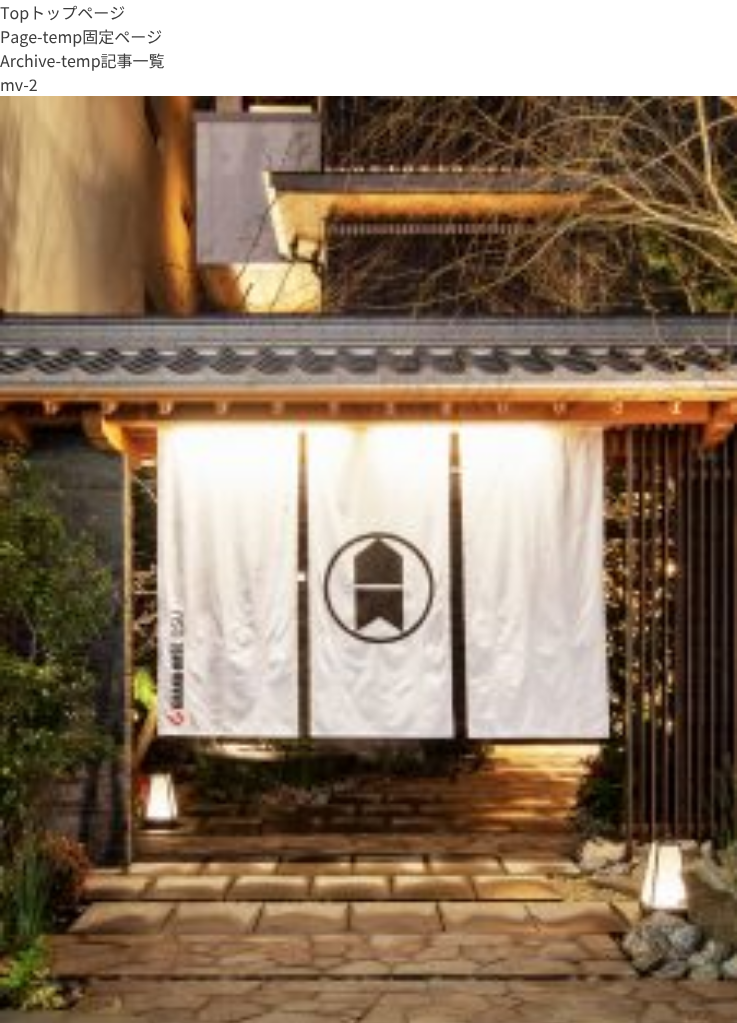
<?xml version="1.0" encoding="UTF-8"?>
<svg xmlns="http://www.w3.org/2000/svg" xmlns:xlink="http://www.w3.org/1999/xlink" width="737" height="1023">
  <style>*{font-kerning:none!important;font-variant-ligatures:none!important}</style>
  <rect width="100%" height="100%" fill="#ffffff" />
  <image x="0" y="96" width="737" height="927" xlink:href="image1.png" />
  <text x="0" y="19" style="font-family: Noto Sans JP; font-size: 16px; fill: #3c3c3c">Topトップページ</text>
  <text x="0" y="43" style="font-family: Noto Sans JP; font-size: 16px; fill: #3c3c3c">Page-temp固定ページ</text>
  <text x="0" y="67" style="font-family: Noto Sans JP; font-size: 16px; fill: #3c3c3c">Archive-temp記事一覧</text>
  <text x="0" y="91" style="font-family: Noto Sans JP; font-size: 16px; fill: #3c3c3c">mv-2</text>
</svg>
